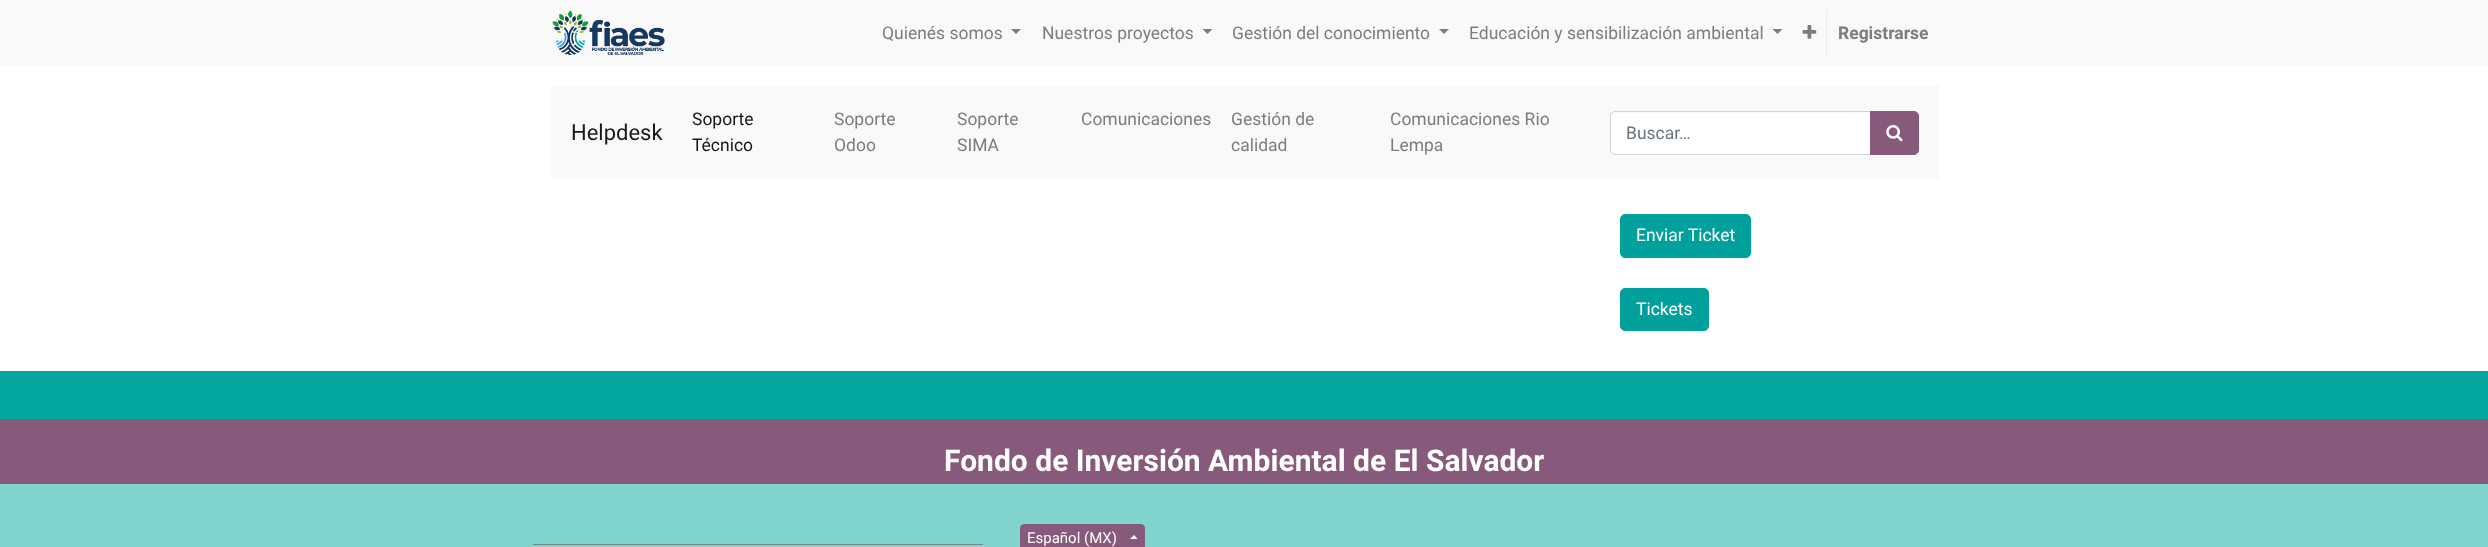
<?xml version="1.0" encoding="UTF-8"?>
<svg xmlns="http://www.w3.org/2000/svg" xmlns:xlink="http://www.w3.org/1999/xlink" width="2488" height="547">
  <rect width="100%" height="100%" fill="#ffffff" />
  <rect width="2488" height="66" fill="#f9f9f9" />
  <image x="552" y="10" width="113" height="45" xlink:href="image1.png" />
  <path d="M 1011 29 h 10 l -5 5 z" fill="#7d7d7d" />
  <path d="M 1202.5 29 h 10 l -5 5 z" fill="#7d7d7d" />
  <path d="M 1439 29 h 10 l -5 5 z" fill="#7d7d7d" />
  <path d="M 1772.5 29 h 10 l -5 5 z" fill="#7d7d7d" />
  <image x="1802" y="25" width="15" height="14" xlink:href="image2.png" />
  <rect x="1826" y="10" width="1" height="46" fill="#e9ecef" />
  <rect x="551" y="86" width="1388" height="93" fill="#f9f9f9" />
  <path d="M 1615 113 h 255 v 41 h -255 c -2 0 -4 -2 -4 -4 v -33 c 0 -2 2 -4 4 -4 z" fill="#ffffff" />
  <path d="M 1615 111.5 h 255.5 v 43 h -255.5 c -2.5 0 -4.5 -2 -4.5 -4.5 v -34 c 0 -2.5 2 -4.5 4.5 -4.5 z" fill="none" stroke="#ced4da" />
  <path d="M 1870.5 111.5 h 43.5 c 2.5 0 4.5 2 4.5 4.5 v 34 c 0 2.5 -2 4.5 -4.5 4.5 h -43.5 z" fill="#875a7b" stroke="#875a7b" />
  <image x="1886" y="125" width="17" height="17" xlink:href="image3.png" />
  <rect x="1620.5" y="214.5" width="130" height="43" rx="4.5" fill="#00a09d" stroke="#00a09d" />
  <rect x="1620.5" y="288.5" width="88" height="42" rx="4.5" fill="#00a09d" stroke="#00a09d" />
  <rect y="371" width="2488" height="48" fill="#03a69c" />
  <rect y="484" width="2488" height="63" fill="#81d3ce" />
  <rect y="419" width="2488" height="65" fill="#875a7b" />
  <rect x="533" y="544" width="450" height="1" fill="#808080" />
  <rect x="1020.5" y="524.5" width="124" height="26" rx="3.5" fill="#875a7b" stroke="#875a7b" />
  <path d="M 1137.5 539 h -7.5 l 4 -4 z" fill="#ffffff" />
  <text x="882" y="39" style="font-family: Roboto; font-size: 17.5px; fill: #7d7d7d">Quienés somos</text>
  <text x="1042" y="39" style="font-family: Roboto; font-size: 17.5px; fill: #7d7d7d">Nuestros proyectos</text>
  <text x="1232" y="39" style="font-family: Roboto; font-size: 17.5px; fill: #7d7d7d">Gestión del conocimiento</text>
  <text x="1469" y="39" style="font-family: Roboto; font-size: 17.5px; fill: #7d7d7d">Educación y sensibilización ambiental</text>
  <text x="1838" y="39" style="font-family: Roboto; font-size: 17.5px; font-weight: bold; fill: #7d7d7d">Registrarse</text>
  <text x="571" y="140" style="font-family: Roboto; font-size: 22px; fill: #191919">Helpdesk</text>
  <text x="692" y="125" style="font-family: Roboto; font-size: 17.5px; fill: #191919">Soporte</text>
  <text x="692" y="151" style="font-family: Roboto; font-size: 17.5px; fill: #191919">Técnico</text>
  <text x="834" y="125" style="font-family: Roboto; font-size: 17.5px; fill: #7d7d7d">Soporte</text>
  <text x="834" y="151" style="font-family: Roboto; font-size: 17.5px; fill: #7d7d7d">Odoo</text>
  <text x="957" y="125" style="font-family: Roboto; font-size: 17.5px; fill: #7d7d7d">Soporte</text>
  <text x="957" y="151" style="font-family: Roboto; font-size: 17.5px; fill: #7d7d7d">SIMA</text>
  <text x="1081" y="125" style="font-family: Roboto; font-size: 17.5px; fill: #7d7d7d">Comunicaciones</text>
  <text x="1231" y="125" style="font-family: Roboto; font-size: 17.5px; fill: #7d7d7d">Gestión de</text>
  <text x="1231" y="151" style="font-family: Roboto; font-size: 17.5px; fill: #7d7d7d">calidad</text>
  <text x="1390" y="125" style="font-family: Roboto; font-size: 17.5px; fill: #7d7d7d">Comunicaciones Rio</text>
  <text x="1390" y="151" style="font-family: Roboto; font-size: 17.5px; fill: #7d7d7d">Lempa</text>
  <text x="1626" y="139" style="font-family: Roboto; font-size: 17.5px; fill: #6c757d">Buscar…</text>
  <text x="1636" y="241" style="font-family: Roboto; font-size: 17.5px; fill: #ffffff">Enviar Ticket</text>
  <text x="1636" y="315" style="font-family: Roboto; font-size: 17.5px; fill: #ffffff">Tickets</text>
  <text x="944" y="471" style="font-family: Roboto; font-size: 30px; font-weight: bold; fill: #ffffff">Fondo de Inversión Ambiental de El Salvador</text>
  <text x="1027" y="543" style="font-family: Roboto; font-size: 15px; fill: #ffffff">Español (MX)</text>
</svg>
